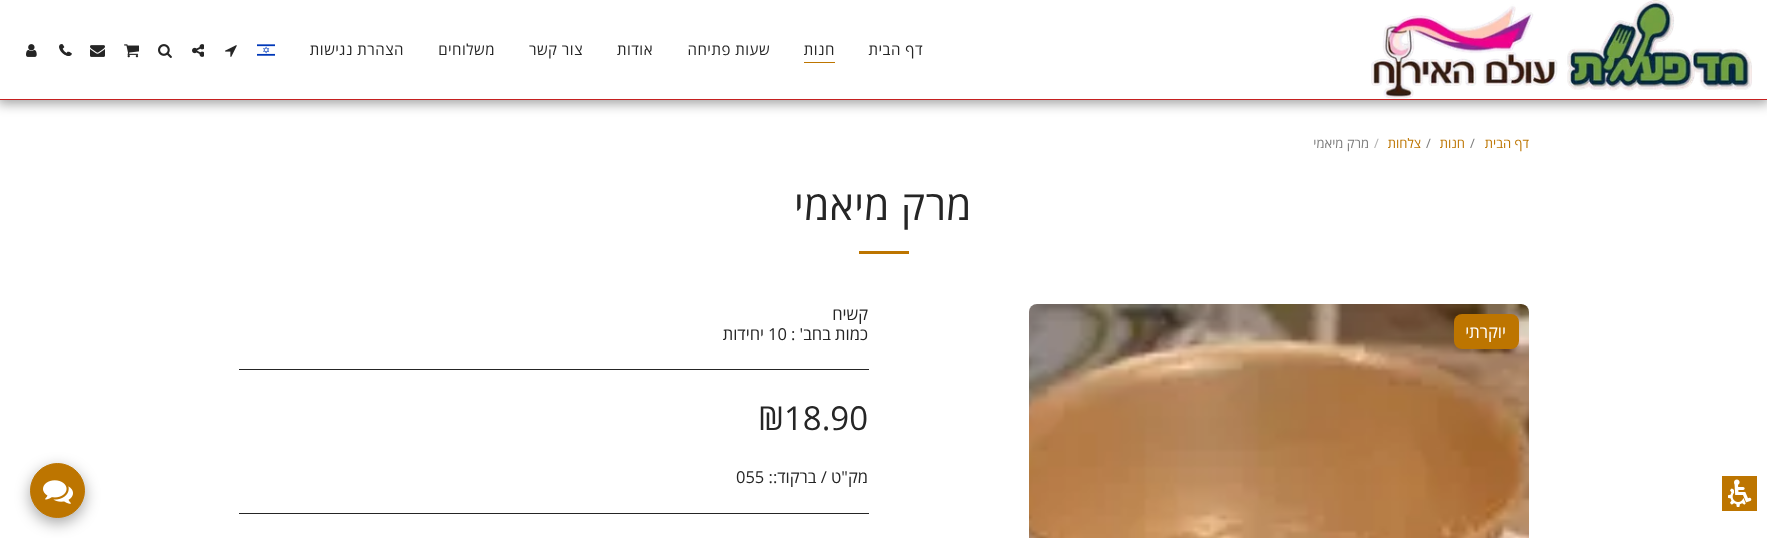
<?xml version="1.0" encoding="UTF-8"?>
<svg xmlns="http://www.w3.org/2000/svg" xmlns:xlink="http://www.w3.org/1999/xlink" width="1767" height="538">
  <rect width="100%" height="100%" fill="#ffffff" />
  <rect x="1722" y="476" width="35" height="35" fill="#bd7500" />
  <image x="1728" y="479" width="24" height="28" xlink:href="image1.png" />
  <rect x="-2" width="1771" height="104" fill="#000000" fill-opacity="0.35" filter="blur(6px)" />
  <rect width="1767" height="99" fill="#ffffff" />
  <rect y="99" width="1767" height="1" fill="#c62020" />
  <image x="1371" y="0" width="381" height="99" xlink:href="image2.png" />
  <rect x="804" y="62" width="31" height="1" fill="#bd7500" />
  <image x="257" y="44" width="18" height="12" xlink:href="image3.png" />
  <image x="225" y="45" width="12" height="12" xlink:href="image4.png" />
  <image x="192" y="44" width="12" height="13" xlink:href="image5.png" />
  <image x="158" y="44" width="14" height="14" xlink:href="image6.png" />
  <image x="124" y="44" width="15" height="14" xlink:href="image7.png" />
  <image x="90" y="45" width="15" height="12" xlink:href="image8.png" />
  <image x="59" y="44" width="11" height="12" xlink:href="image9.png" />
  <image x="61" y="44" width="11" height="12" xlink:href="image10.png" />
  <image x="26" y="44" width="11" height="13" xlink:href="image11.png" />
  <rect x="859" y="251" width="50" height="3" fill="#bd7500" />
  <image x="1029" y="304" width="500" height="234" xlink:href="image12.png" />
  <rect x="1454" y="314" width="65" height="35" rx="8" fill="#bd7500" />
  <rect x="239" y="369" width="630" height="1" fill="#252525" />
  <rect x="239" y="513" width="630" height="1" fill="#252525" />
  <rect x="30" y="468" width="55" height="55" rx="27.5" fill="#000000" fill-opacity="0.35" filter="blur(7.5px)" />
  <circle cx="57.5" cy="490.5" r="27" fill="#bd7500" stroke="#bd7500" />
  <image x="43" y="480" width="30" height="24" xlink:href="image13.png" />
  <text x="923" y="55" style="font-family: Open Sans; font-size: 15px; letter-spacing: 0.5px; direction: rtl; fill: #252525">דף הבית</text>
  <text x="835" y="55" style="font-family: Open Sans; font-size: 15px; letter-spacing: 0.5px; direction: rtl; fill: #252525">חנות</text>
  <text x="770" y="55" style="font-family: Open Sans; font-size: 15px; letter-spacing: 0.5px; direction: rtl; fill: #252525">שעות פתיחה</text>
  <text x="653" y="55" style="font-family: Open Sans; font-size: 15px; letter-spacing: 0.5px; direction: rtl; fill: #252525">אודות</text>
  <text x="583" y="55" style="font-family: Open Sans; font-size: 15px; letter-spacing: 0.5px; direction: rtl; fill: #252525">צור קשר</text>
  <text x="495" y="55" style="font-family: Open Sans; font-size: 15px; letter-spacing: 0.5px; direction: rtl; fill: #252525">משלוחים</text>
  <text x="404" y="55" style="font-family: Open Sans; font-size: 15px; letter-spacing: 0.5px; direction: rtl; fill: #252525">הצהרת נגישות</text>
  <text x="1529" y="148" style="font-family: Open Sans; font-size: 13px; direction: rtl; fill: #bd7500">דף הבית</text>
  <text x="1470" y="148" style="font-family: Open Sans; font-size: 13px; fill: #7c7c7c">/</text>
  <text x="1465" y="148" style="font-family: Open Sans; font-size: 13px; direction: rtl; fill: #bd7500">חנות</text>
  <text x="1426" y="148" style="font-family: Open Sans; font-size: 13px; fill: #7c7c7c">/</text>
  <text x="1421" y="148" style="font-family: Open Sans; font-size: 13px; direction: rtl; fill: #bd7500">צלחות</text>
  <text x="1374" y="148" style="font-family: Open Sans; font-size: 13px; fill: #b1b1b1">/</text>
  <text x="1369" y="148" style="font-family: Open Sans; font-size: 13px; direction: rtl; fill: #7c7c7c">מרק מיאמי</text>
  <text x="972" y="220" style="font-family: Open Sans; font-size: 40.5px; letter-spacing: 0.5px; direction: rtl; fill: #252525">מרק מיאמי</text>
  <text x="1506" y="338" style="font-family: Open Sans; font-size: 16.5px; direction: rtl; fill: #ffffff">יוקרתי</text>
  <text x="868" y="320" style="font-family: Open Sans; font-size: 16.5px; direction: rtl; fill: #252525">קשיח</text>
  <text x="868" y="340" style="font-family: Open Sans; font-size: 16.5px; direction: rtl; fill: #252525">כמות בחב' :</text>
  <text x="768" y="340" style="font-family: Open Sans; font-size: 16.5px; fill: #252525">10</text>
  <text x="764" y="340" style="font-family: Open Sans; font-size: 16.5px; direction: rtl; fill: #252525">יחידות</text>
  <text x="758" y="430" style="font-family: Open Sans; font-size: 33px; fill: #252525">₪18.90</text>
  <text x="868" y="483" style="font-family: Open Sans; font-size: 16.5px; direction: rtl; fill: #252525">מק"ט / ברקוד::</text>
  <text x="736" y="483" style="font-family: Open Sans; font-size: 16.5px; fill: #252525">055</text>
</svg>
